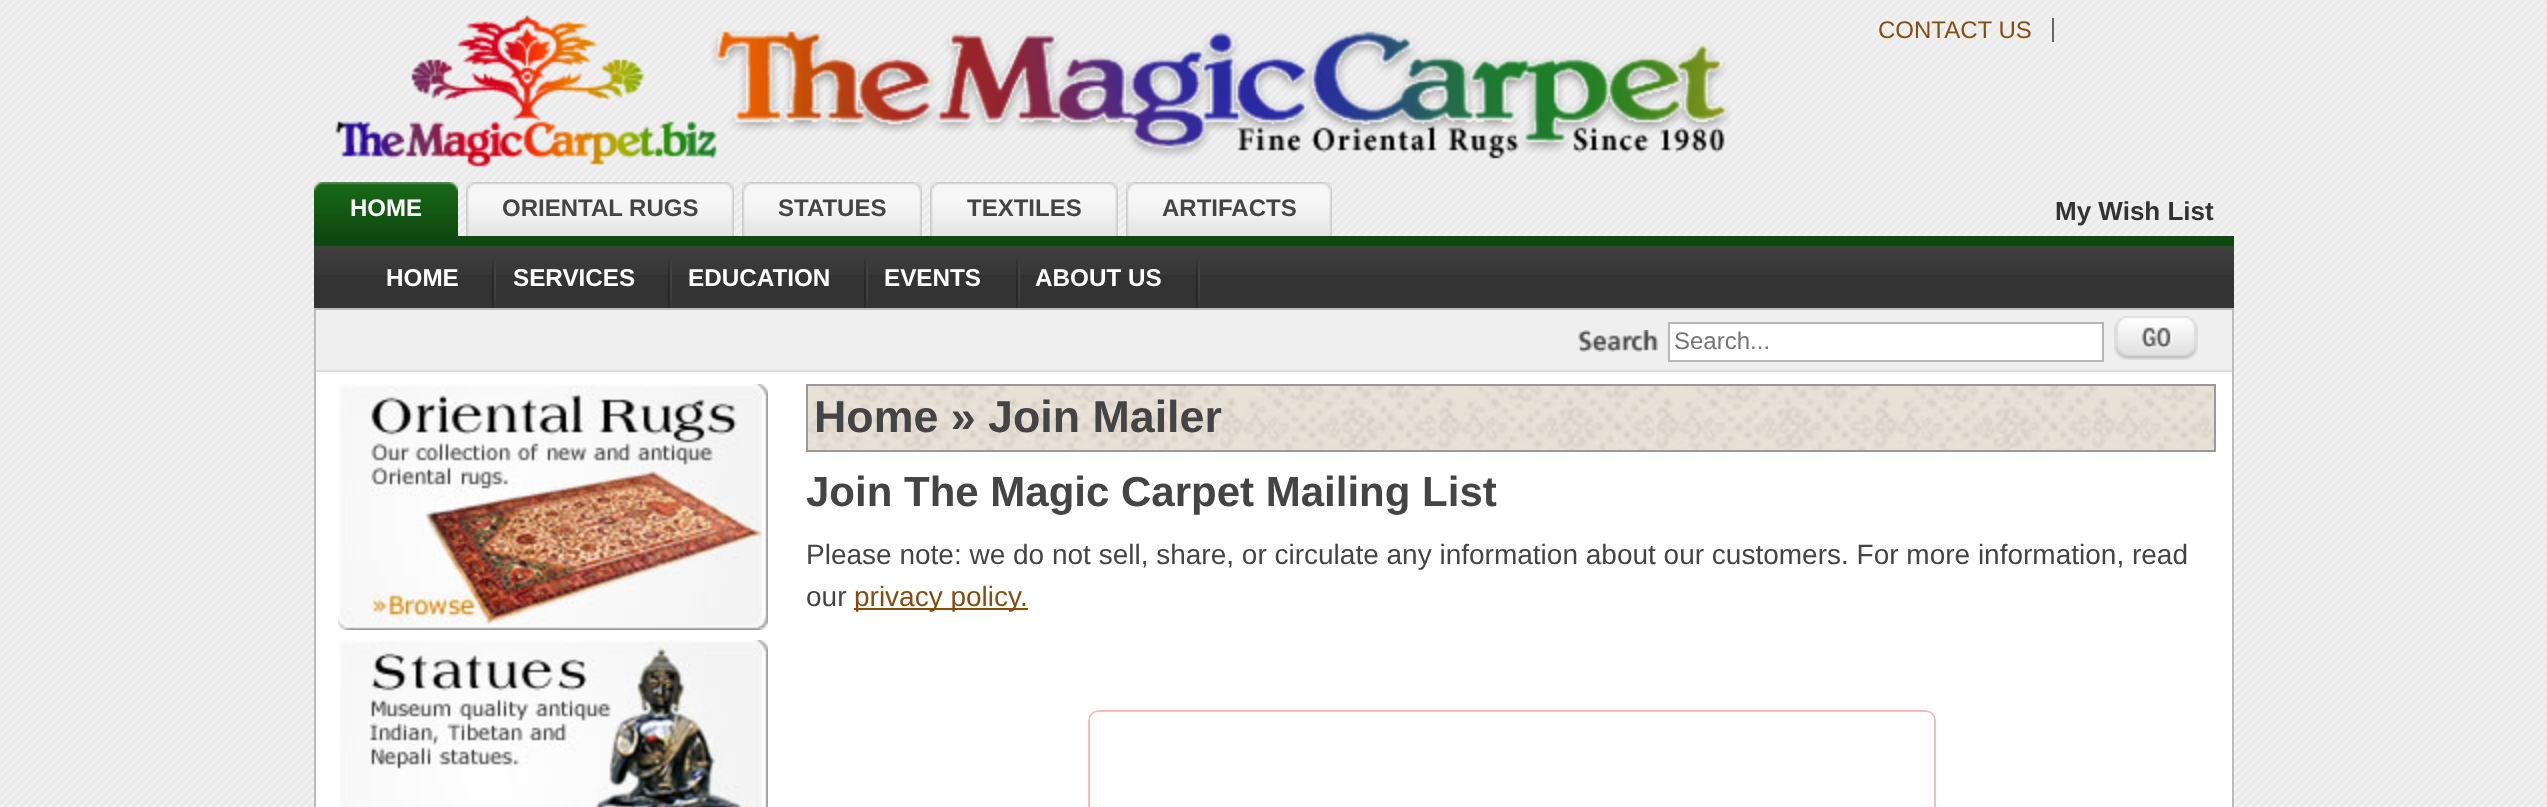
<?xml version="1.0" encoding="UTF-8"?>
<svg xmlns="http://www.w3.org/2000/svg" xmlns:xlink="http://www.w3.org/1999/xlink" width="2547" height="807">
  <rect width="100%" height="100%" fill="#ffffff" />
  <image x="0" y="0" width="2547" height="807" xlink:href="image1.png" />
  <image x="335" y="15" width="1396" height="152" xlink:href="image2.png" />
  <rect x="2052" y="18" width="2" height="24" fill="#666666" />
  <rect x="314" y="236" width="1920" height="10" fill="#104910" />
  <image x="314" y="182" width="144" height="54" xlink:href="image3.png" />
  <image x="314" y="182" width="8" height="9" xlink:href="image4.png" />
  <image x="474" y="182" width="260" height="54" xlink:href="image5.png" />
  <image x="466" y="182" width="8" height="54" xlink:href="image6.png" />
  <image x="750" y="182" width="172" height="54" xlink:href="image7.png" />
  <image x="742" y="182" width="8" height="54" xlink:href="image6.png" />
  <image x="938" y="182" width="180" height="54" xlink:href="image8.png" />
  <image x="930" y="182" width="8" height="54" xlink:href="image6.png" />
  <image x="1134" y="182" width="198" height="54" xlink:href="image9.png" />
  <image x="1126" y="182" width="8" height="54" xlink:href="image6.png" />
  <rect x="314" y="275" width="1920" height="33" fill="#333333" />
  <image x="314" y="246" width="1920" height="29" xlink:href="image10.png" />
  <image x="492" y="260" width="4" height="48" xlink:href="image11.png" />
  <image x="668" y="260" width="4" height="48" xlink:href="image11.png" />
  <image x="864" y="260" width="4" height="48" xlink:href="image11.png" />
  <image x="1016" y="260" width="4" height="48" xlink:href="image11.png" />
  <image x="1196" y="260" width="4" height="48" xlink:href="image11.png" />
  <rect x="316" y="372" width="1916" height="435" fill="#ffffff" />
  <rect x="314" y="308" width="1920" height="2" fill="#bbbbbb" />
  <rect x="2232" y="308" width="2" height="499" fill="#bbbbbb" />
  <rect x="314" y="308" width="2" height="499" fill="#bbbbbb" />
  <rect x="316" y="310" width="1916" height="60" fill="#efefef" />
  <rect x="316" y="370" width="1916" height="2" fill="#dedede" />
  <image x="1578" y="330" width="80" height="22" xlink:href="image12.png" />
  <rect x="1669" y="323" width="434" height="38" fill="#ffffff" stroke="#b6b6b6" stroke-width="2" />
  <image x="2114" y="316" width="84" height="44" xlink:href="image13.png" />
  <image x="338" y="384" width="430" height="246" xlink:href="image14.png" />
  <image x="339" y="640" width="429" height="167" xlink:href="image15.png" />
  <image x="808" y="386" width="1406" height="64" xlink:href="image16.png" />
  <rect x="807" y="385" width="1408" height="66" fill="none" stroke="#999999" stroke-width="2" />
  <rect x="854" y="608" width="174" height="2" fill="#834e12" />
  <image x="1088" y="710" width="848" height="97" xlink:href="image17.png" />
  <text x="1878" y="38" style="font-family: Liberation Sans; font-size: 24px; fill: #834e12">CONTACT US</text>
  <text x="350" y="216" style="font-family: Liberation Sans; font-size: 24px; font-weight: bold; fill: #ffffff">HOME</text>
  <text x="502" y="216" style="font-family: Liberation Sans; font-size: 24px; font-weight: bold; fill: #444444">ORIENTAL RUGS</text>
  <text x="778" y="216" style="font-family: Liberation Sans; font-size: 24px; font-weight: bold; fill: #444444">STATUES</text>
  <text x="967" y="216" style="font-family: Liberation Sans; font-size: 24px; font-weight: bold; fill: #444444">TEXTILES</text>
  <text x="1162" y="216" style="font-family: Liberation Sans; font-size: 24px; font-weight: bold; fill: #444444">ARTIFACTS</text>
  <text x="2055" y="220" style="font-family: Liberation Sans; font-size: 26px; font-weight: bold; fill: #333333">My Wish List</text>
  <text x="386" y="286" style="font-family: Liberation Sans; font-size: 24.25px; font-weight: bold; fill: #ffffff">HOME</text>
  <text x="513" y="286" style="font-family: Liberation Sans; font-size: 24.25px; font-weight: bold; fill: #ffffff">SERVICES</text>
  <text x="688" y="286" style="font-family: Liberation Sans; font-size: 24.25px; font-weight: bold; fill: #ffffff">EDUCATION</text>
  <text x="884" y="286" style="font-family: Liberation Sans; font-size: 24.25px; font-weight: bold; fill: #ffffff">EVENTS</text>
  <text x="1035" y="286" style="font-family: Liberation Sans; font-size: 24.25px; font-weight: bold; fill: #ffffff">ABOUT US</text>
  <text x="1674" y="349" style="font-family: Liberation Sans; font-size: 24px; fill: #757575">Search...</text>
  <text x="814" y="432" style="font-family: Liberation Sans; font-size: 44.75px; font-weight: bold; fill: #444444">Home » Join Mailer</text>
  <text x="806" y="506" style="font-family: Liberation Sans; font-size: 42px; font-weight: bold; fill: #444444">Join The Magic Carpet Mailing List</text>
  <text x="806" y="564" style="font-family: Liberation Sans; font-size: 28px; fill: #444444">Please note: we do not sell, share, or circulate any information about our customers. For more information, read</text>
  <text x="806" y="606" style="font-family: Liberation Sans; font-size: 28px; fill: #444444">our</text>
  <text x="854" y="606" style="font-family: Liberation Sans; font-size: 28px; fill: #834e12">privacy policy.</text>
</svg>
